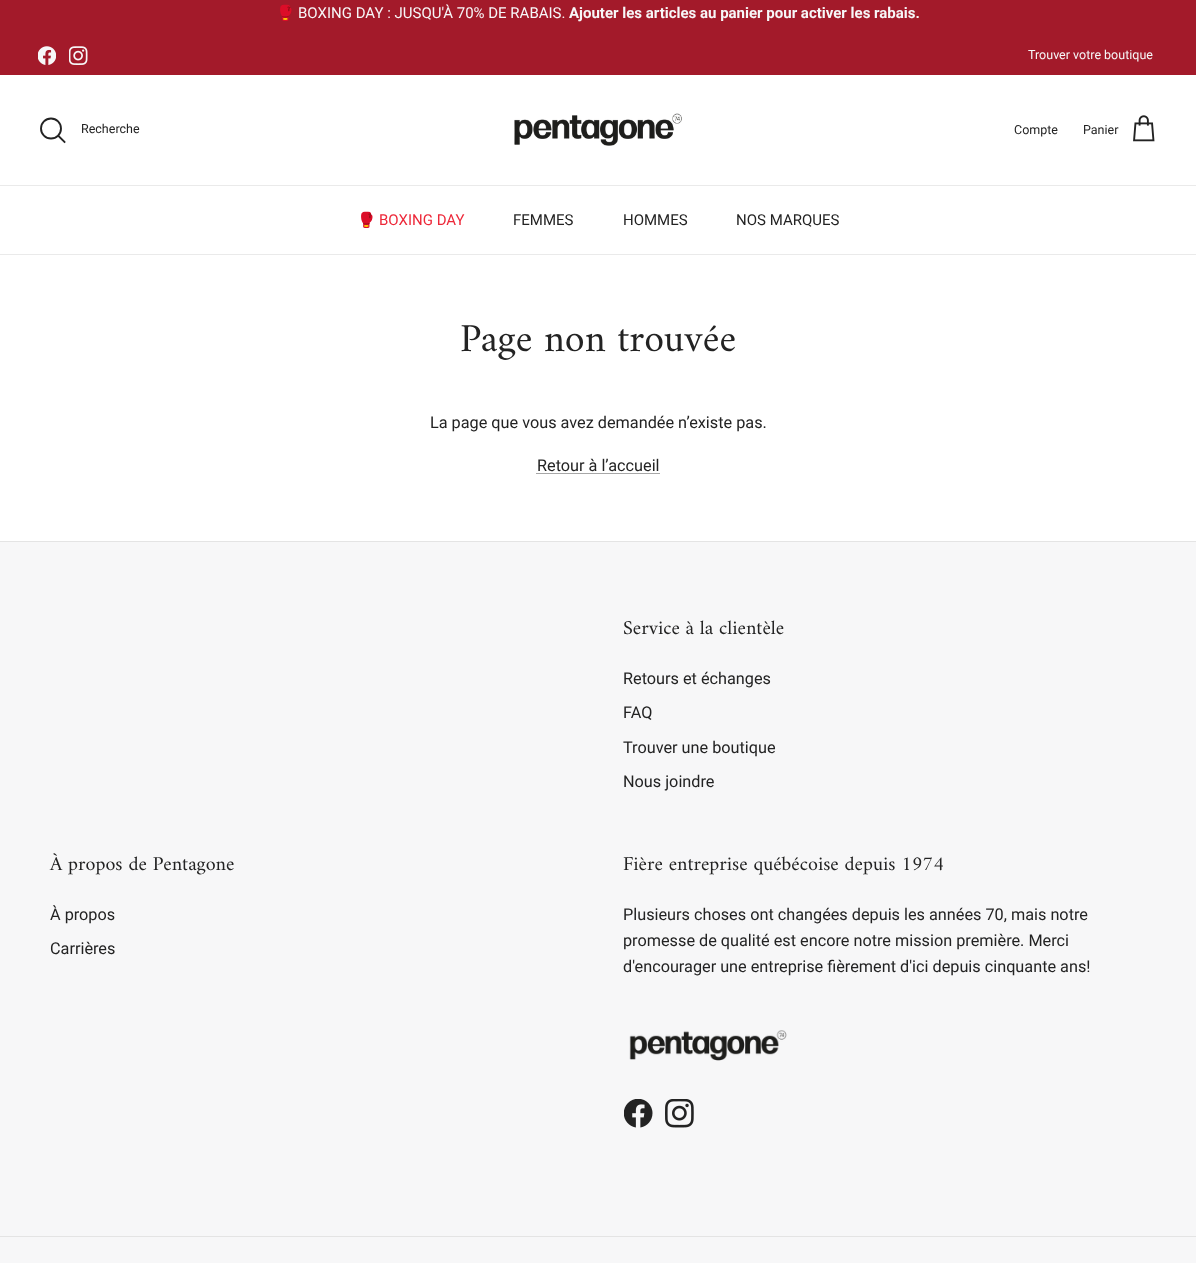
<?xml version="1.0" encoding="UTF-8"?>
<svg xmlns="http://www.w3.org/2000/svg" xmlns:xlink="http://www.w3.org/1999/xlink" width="1196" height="1263">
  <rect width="100%" height="100%" fill="#ffffff" />
  <rect width="1196" height="75" fill="#a31a2a" />
  <image x="38" y="46" width="18" height="19" xlink:href="image1.png" />
  <image x="69" y="46" width="19" height="19" xlink:href="image2.png" />
  <rect y="185" width="1196" height="1" fill="#eaeaea" />
  <circle cx="51" cy="128.5" r="10" fill="none" stroke="#232323" stroke-width="1.9" />
  <path d="M 58.5 136 l 6 6" fill="none" stroke="#232323" stroke-width="1.9" stroke-linecap="square" />
  <image x="514" y="113" width="168" height="33" xlink:href="image3.png" />
  <image x="1133" y="115" width="22" height="27" xlink:href="image4.png" />
  <rect y="254" width="1196" height="1" fill="#eaeaea" />
  <rect x="536" y="473" width="124" height="1" fill="#a7a7a7" />
  <rect y="542" width="1196" height="721" fill="#f7f7f8" />
  <rect y="541" width="1196" height="1" fill="#e4e4e4" />
  <image x="629" y="1030" width="158" height="31" xlink:href="image5.png" />
  <image x="624" y="1099" width="29" height="29" xlink:href="image6.png" />
  <image x="665" y="1099" width="29" height="29" xlink:href="image7.png" />
  <rect y="1236" width="1196" height="1" fill="#e4e4e4" />
  <text x="276" y="18" style="font-family: Noto Color Emoji; font-size: 15px; fill: #f7f7f8">🥊</text>
  <text x="298" y="18" style="font-family: Roboto; font-size: 15px; fill: #f7f7f8">BOXING DAY : JUSQU'À 70% DE RABAIS.</text>
  <text x="569" y="18" style="font-family: Roboto; font-size: 15px; font-weight: bold; fill: #f7f7f8">Ajouter les articles au panier pour activer les rabais.</text>
  <text x="1028" y="59" style="font-family: Roboto; font-size: 12.5px; fill: #f7f7f8">Trouver votre boutique</text>
  <text x="81" y="133" style="font-family: Roboto; font-size: 12.5px; fill: #232323">Recherche</text>
  <text x="1014" y="134" style="font-family: Roboto; font-size: 12.5px; fill: #232323">Compte</text>
  <text x="1083" y="134" style="font-family: Roboto; font-size: 12.5px; fill: #232323">Panier</text>
  <text x="357" y="225" style="font-family: Noto Color Emoji; font-size: 15px; fill: #ed2839">🥊</text>
  <text x="379" y="225" style="font-family: Roboto; font-size: 15px; fill: #ed2839">BOXING DAY</text>
  <text x="513" y="225" style="font-family: Roboto; font-size: 15px; fill: #232323">FEMMES</text>
  <text x="623" y="225" style="font-family: Roboto; font-size: 15px; fill: #232323">HOMMES</text>
  <text x="736" y="225" style="font-family: Roboto; font-size: 15px; fill: #232323">NOS MARQUES</text>
  <text x="460" y="351" style="font-family: Amiri; font-size: 40px; fill: #232323">Page non trouvée</text>
  <text x="430" y="428" style="font-family: Roboto; font-size: 16.25px; fill: #232323">La page que vous avez demandée n’existe pas.</text>
  <text x="537" y="471" style="font-family: Roboto; font-size: 16.25px; fill: #232323">Retour à l’accueil</text>
  <text x="623" y="634" style="font-family: Amiri; font-size: 20px; fill: #232323">Service à la clientèle</text>
  <text x="623" y="684" style="font-family: Roboto; font-size: 16.25px; fill: #232323">Retours et échanges</text>
  <text x="623" y="718" style="font-family: Roboto; font-size: 16.25px; fill: #232323">FAQ</text>
  <text x="623" y="753" style="font-family: Roboto; font-size: 16.25px; fill: #232323">Trouver une boutique</text>
  <text x="623" y="787" style="font-family: Roboto; font-size: 16.25px; fill: #232323">Nous joindre</text>
  <text x="50" y="870" style="font-family: Amiri; font-size: 20px; fill: #232323">À propos de Pentagone</text>
  <text x="50" y="920" style="font-family: Roboto; font-size: 16.25px; fill: #232323">À propos</text>
  <text x="50" y="954" style="font-family: Roboto; font-size: 16.25px; fill: #232323">Carrières</text>
  <text x="623" y="870" style="font-family: Amiri; font-size: 20px; fill: #232323">Fière entreprise québécoise depuis 1974</text>
  <text x="623" y="920" style="font-family: Roboto; font-size: 16.25px; fill: #232323">Plusieurs choses ont changées depuis les années 70, mais notre</text>
  <text x="623" y="946" style="font-family: Roboto; font-size: 16.25px; fill: #232323">promesse de qualité est encore notre mission première. Merci</text>
  <text x="623" y="972" style="font-family: Roboto; font-size: 16.25px; fill: #232323">d'encourager une entreprise fièrement d'ici depuis cinquante ans!</text>
</svg>
